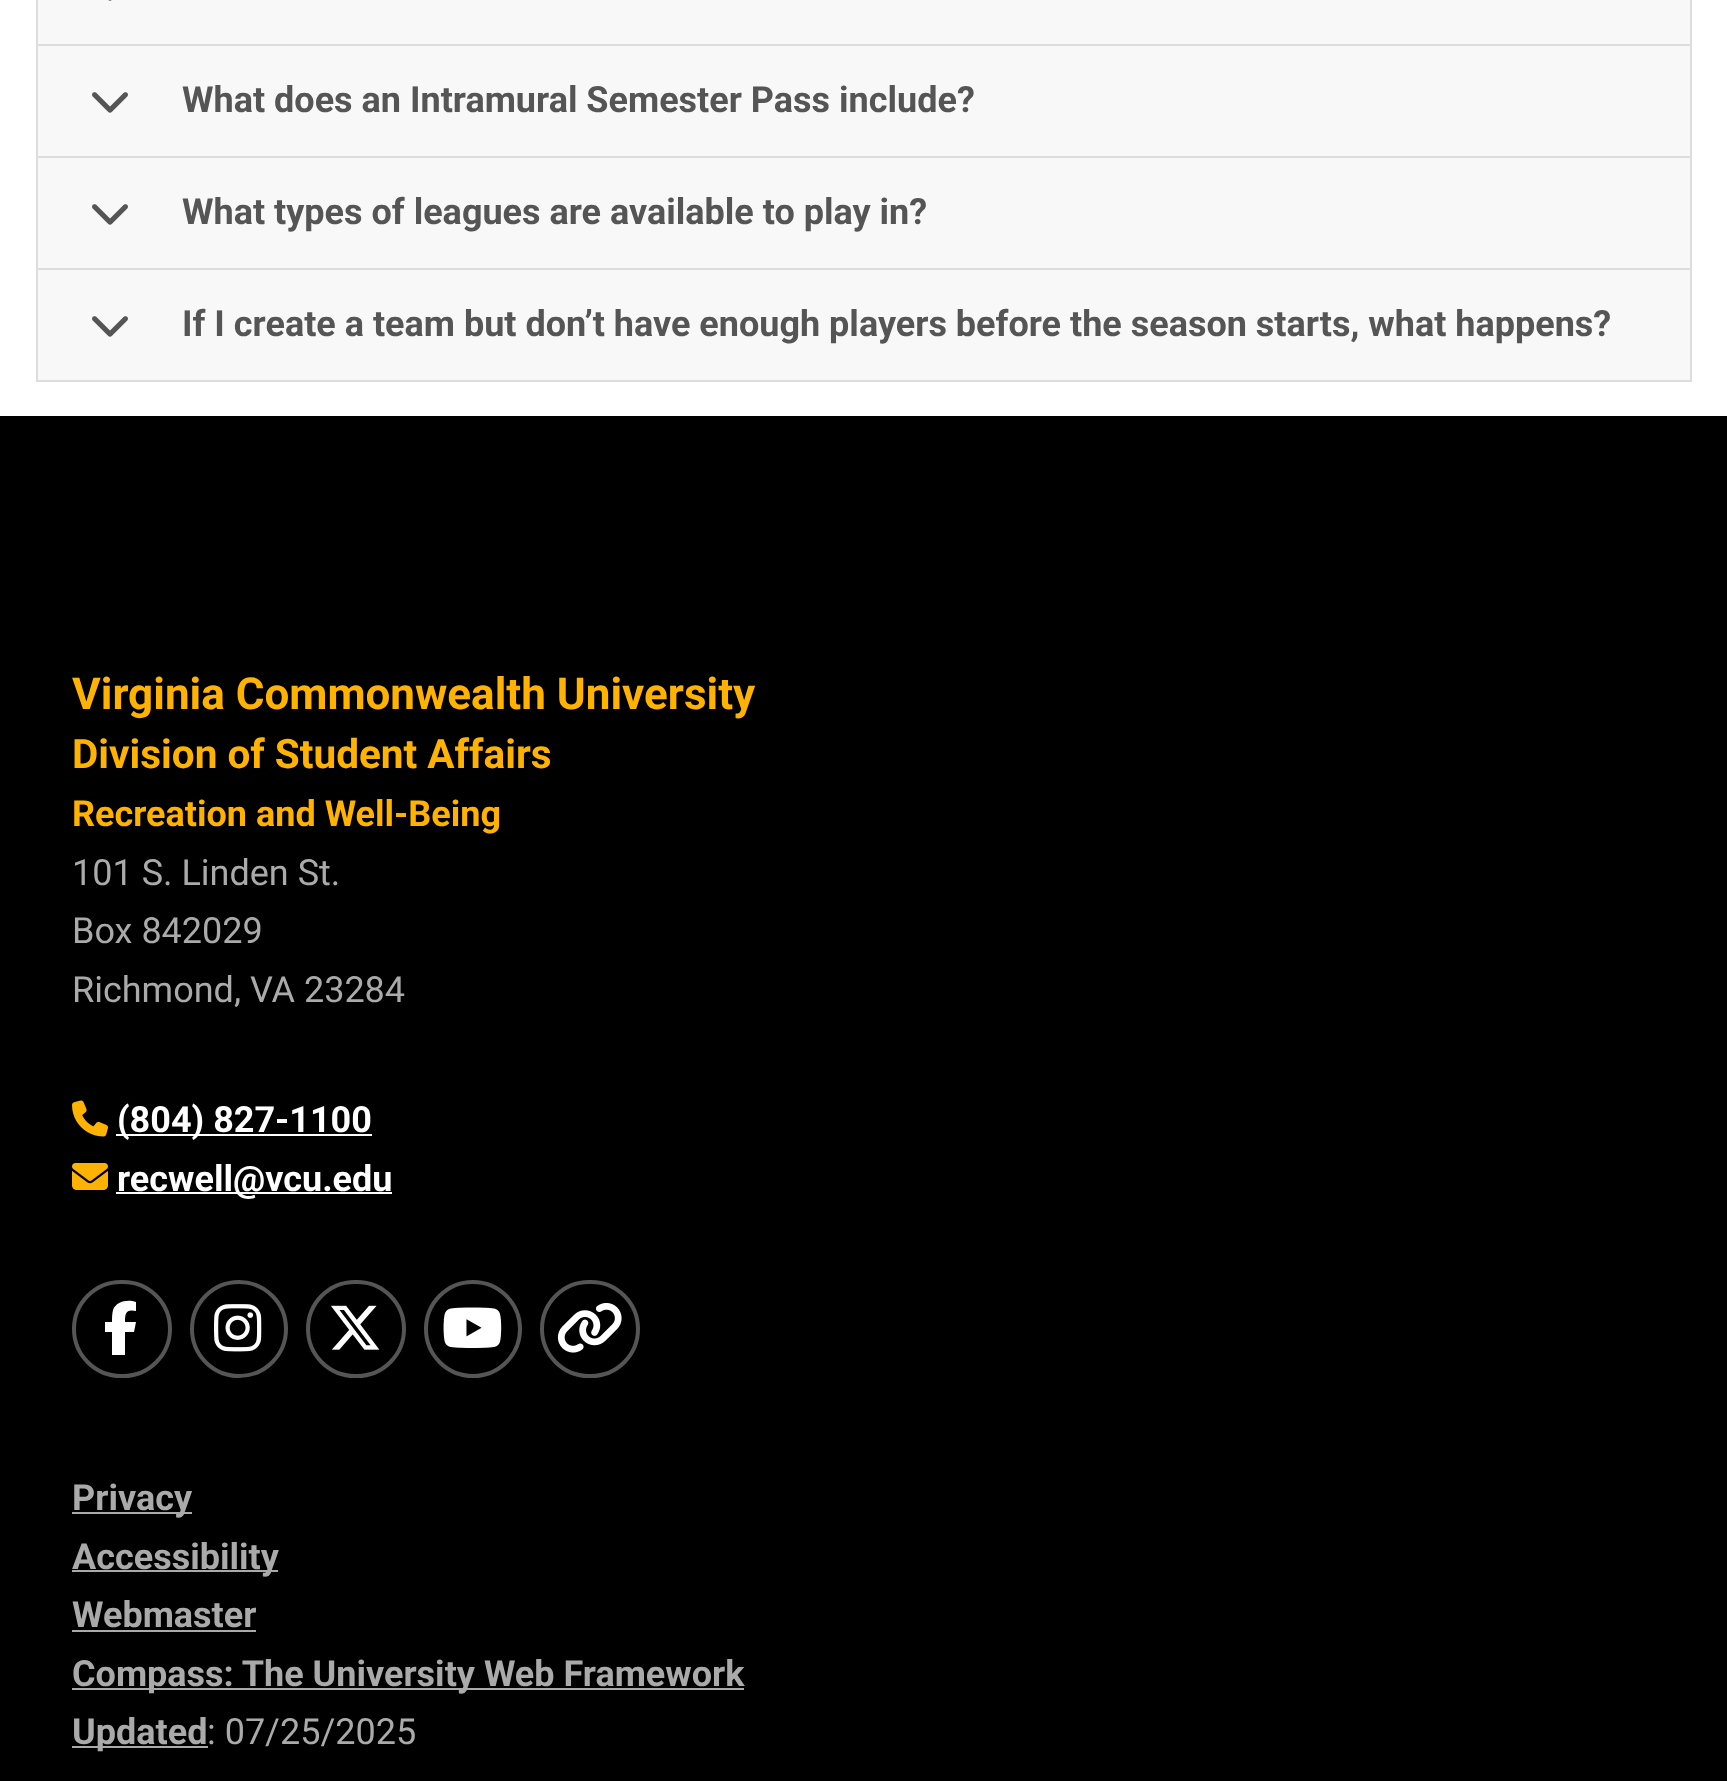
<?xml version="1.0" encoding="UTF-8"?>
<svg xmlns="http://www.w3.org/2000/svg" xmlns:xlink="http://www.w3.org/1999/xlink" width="1727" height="1781">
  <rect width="100%" height="100%" fill="#ffffff" />
  <rect x="37" y="-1" width="1654" height="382" fill="none" stroke="#dddddd" stroke-width="2" />
  <rect x="38" width="1652" height="44" fill="#f8f8f8" />
  <rect x="38" y="44" width="1652" height="2" fill="#dddddd" />
  <image x="108" y="0" width="4" height="1" xlink:href="image1.png" />
  <rect x="38" y="46" width="1652" height="110" fill="#f8f8f8" />
  <rect x="38" y="156" width="1652" height="2" fill="#dddddd" />
  <image x="92" y="92" width="36" height="21" xlink:href="image2.png" />
  <rect x="38" y="158" width="1652" height="110" fill="#f8f8f8" />
  <rect x="38" y="268" width="1652" height="2" fill="#dddddd" />
  <image x="92" y="204" width="36" height="21" xlink:href="image2.png" />
  <rect x="38" y="270" width="1652" height="110" fill="#f8f8f8" />
  <image x="92" y="316" width="36" height="21" xlink:href="image2.png" />
  <rect y="416" width="1727" height="1365" fill="#000000" />
  <image x="72" y="1100" width="36" height="37" xlink:href="image3.png" />
  <rect x="116" y="1134" width="256" height="2" fill="#ffffff" />
  <image x="72" y="1163" width="36" height="27" xlink:href="image4.png" />
  <rect x="116" y="1192" width="276" height="2" fill="#ffffff" />
  <rect x="74" y="1282" width="96" height="94" rx="47" fill="none" stroke="#555555" stroke-width="4" />
  <path d="M 112 1332 v 23 v -23 v 23 h 13 v -23 h 9 l 2 -10 h -11 c 0 -9 1 -13 11 -11 v -9 c -8 -3 -20 -1 -23 8 c -1 4 -1 8 -1 12 h -7 v 10 z" fill="#ffffff" />
  <circle cx="239" cy="1329" r="47" fill="none" stroke="#555555" stroke-width="4" />
  <image x="214" y="1304" width="48" height="48" xlink:href="image5.png" />
  <rect x="308" y="1282" width="96" height="94" rx="47" fill="none" stroke="#555555" stroke-width="4" />
  <image x="331" y="1305" width="49" height="45" xlink:href="image6.png" />
  <circle cx="473" cy="1329" r="47" fill="none" stroke="#555555" stroke-width="4" />
  <image x="443" y="1307" width="59" height="41" xlink:href="image7.png" />
  <rect x="542" y="1282" width="96" height="94" rx="47" fill="none" stroke="#555555" stroke-width="4" />
  <image x="557" y="1303" width="65" height="50" xlink:href="image8.png" />
  <rect x="72" y="1512" width="120" height="2" fill="#aaaaaa" />
  <rect x="72" y="1570" width="206" height="2" fill="#aaaaaa" />
  <rect x="72" y="1630" width="184" height="2" fill="#aaaaaa" />
  <rect x="72" y="1688" width="672" height="2" fill="#aaaaaa" />
  <rect x="72" y="1746" width="136" height="2" fill="#aaaaaa" />
  <text x="182" y="112" style="font-family: Roboto; font-size: 36px; font-weight: bold; fill: #555555">What does an Intramural Semester Pass include?</text>
  <text x="182" y="224" style="font-family: Roboto; font-size: 36px; font-weight: bold; fill: #555555">What types of leagues are available to play in?</text>
  <text x="182" y="336" style="font-family: Roboto; font-size: 36px; font-weight: bold; fill: #555555">If I create a team but don’t have enough players before the season starts, what happens?</text>
  <text x="72" y="709" style="font-family: Roboto; font-size: 44px; font-weight: bold; fill: #ffb300">Virginia Commonwealth University</text>
  <text x="72" y="768" style="font-family: Roboto; font-size: 40.5px; font-weight: bold; fill: #ffb300">Division of Student Affairs</text>
  <text x="72" y="826" style="font-family: Roboto; font-size: 36px; font-weight: bold; fill: #ffb300">Recreation and Well-Being</text>
  <text x="72" y="885" style="font-family: Roboto; font-size: 36px; fill: #aaaaaa">101 S. Linden St.</text>
  <text x="72" y="943" style="font-family: Roboto; font-size: 36px; fill: #aaaaaa">Box 842029</text>
  <text x="72" y="1002" style="font-family: Roboto; font-size: 36px; fill: #aaaaaa">Richmond, VA 23284</text>
  <text x="117" y="1132" style="font-family: Roboto; font-size: 36px; font-weight: bold; fill: #ffffff">(804) 827-1100</text>
  <text x="117" y="1191" style="font-family: Roboto; font-size: 36px; font-weight: bold; fill: #ffffff">recwell@vcu.edu</text>
  <text x="72" y="1510" style="font-family: Roboto; font-size: 36px; font-weight: bold; fill: #aaaaaa">Privacy</text>
  <text x="72" y="1569" style="font-family: Roboto; font-size: 36px; font-weight: bold; fill: #aaaaaa">Accessibility</text>
  <text x="72" y="1627" style="font-family: Roboto; font-size: 36px; font-weight: bold; fill: #aaaaaa">Webmaster</text>
  <text x="72" y="1686" style="font-family: Roboto; font-size: 36px; font-weight: bold; fill: #aaaaaa">Compass: The University Web Framework</text>
  <text x="72" y="1744" style="font-family: Roboto; font-size: 36px; font-weight: bold; fill: #aaaaaa">Updated</text>
  <text x="207" y="1744" style="font-family: Roboto; font-size: 36px; fill: #aaaaaa">: 07/25/2025</text>
</svg>
